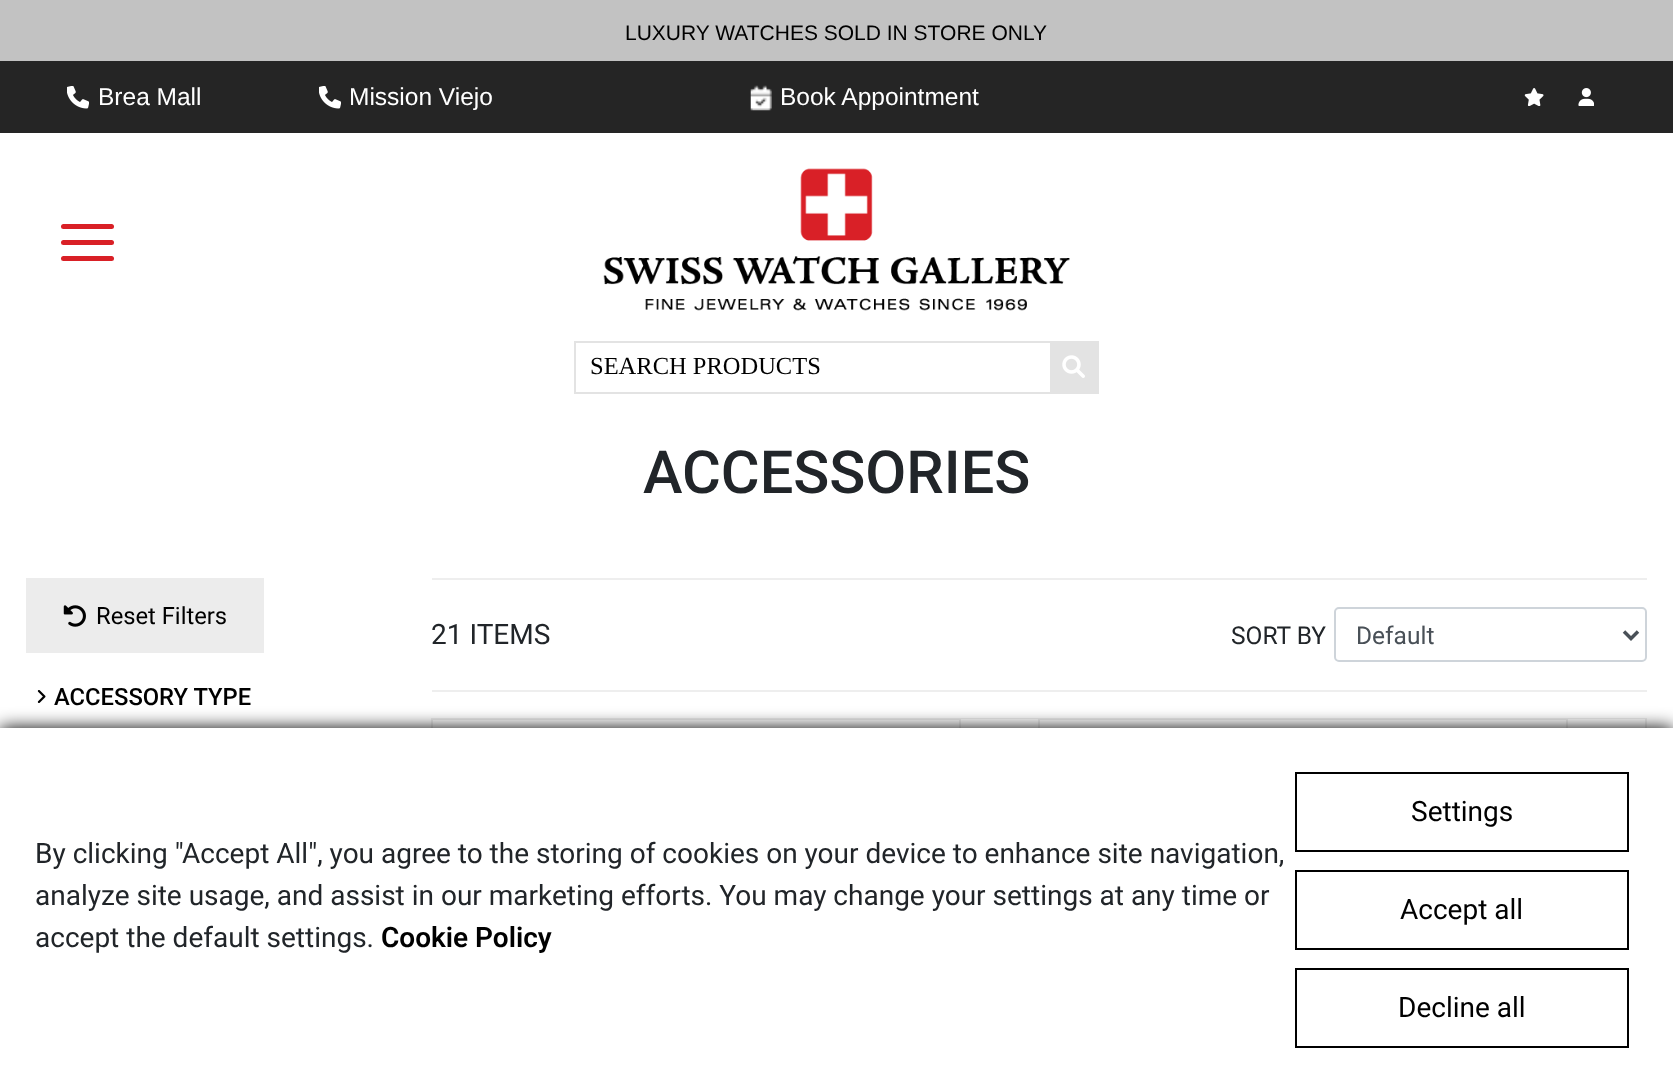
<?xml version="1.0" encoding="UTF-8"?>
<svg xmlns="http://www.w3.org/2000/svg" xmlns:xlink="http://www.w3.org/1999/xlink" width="1673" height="1092">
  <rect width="100%" height="100%" fill="#ffffff" />
  <rect width="1673" height="61" fill="#c2c2c2" />
  <rect y="61" width="1673" height="72" fill="#252525" />
  <image x="67" y="86" width="22" height="23" xlink:href="image1.png" />
  <image x="319" y="86" width="22" height="23" xlink:href="image1.png" />
  <image x="750" y="85" width="22" height="26" xlink:href="image2.png" />
  <image x="1524" y="88" width="20" height="18" xlink:href="image3.png" />
  <image x="1578" y="88" width="16" height="18" xlink:href="image4.png" />
  <rect x="61" y="224" width="53" height="5" rx="2.5" fill="#d92026" />
  <rect x="61" y="240" width="53" height="5" rx="2.5" fill="#d92026" />
  <rect x="61" y="256" width="53" height="5" rx="2.5" fill="#d92026" />
  <image x="603" y="168" width="467" height="143" xlink:href="image5.png" />
  <rect x="574" y="341" width="476" height="2" fill="#e3e3e3" />
  <rect x="574" y="392" width="476" height="2" fill="#e3e3e3" />
  <rect x="574" y="341" width="2" height="53" fill="#e3e3e3" />
  <rect x="1050" y="341" width="49" height="53" fill="#e3e3e3" />
  <image x="1062" y="355" width="23" height="23" xlink:href="image6.png" />
  <rect x="26" y="578" width="238" height="75" fill="#ececec" />
  <image x="63" y="605" width="23" height="22" xlink:href="image7.png" />
  <image x="37" y="690" width="9" height="13" xlink:href="image8.png" />
  <rect x="432" y="578" width="1215" height="2" fill="#eeeeee" />
  <rect x="1335" y="608" width="311" height="53" rx="4" fill="none" stroke="#ced4da" stroke-width="2" />
  <path d="M 1624 631.5 l 7 7 l 7 -7" fill="none" stroke="#495057" stroke-width="3.5" />
  <rect x="432" y="690" width="1215" height="2" fill="#eeeeee" />
  <rect x="432" y="719" width="607" height="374" fill="none" stroke="#eeeeee" stroke-width="2" />
  <rect x="961" y="719" width="77" height="1" fill="#ffffff" />
  <rect x="959" y="719" width="2" height="9" fill="#eeeeee" />
  <rect x="1039" y="719" width="607" height="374" fill="none" stroke="#eeeeee" stroke-width="2" />
  <rect x="1568" y="719" width="77" height="1" fill="#ffffff" />
  <rect x="1566" y="719" width="2" height="9" fill="#eeeeee" />
  <rect y="728" width="1673" height="364" fill="#000000" filter="blur(9px)" />
  <rect y="728" width="1673" height="364" fill="#ffffff" />
  <rect x="1296" y="773" width="332" height="78" fill="none" stroke="#000000" stroke-width="2" />
  <rect x="1296" y="871" width="332" height="78" fill="none" stroke="#000000" stroke-width="2" />
  <rect x="1296" y="969" width="332" height="78" fill="none" stroke="#000000" stroke-width="2" />
  <text x="625" y="40" style="font-family: Liberation Sans; font-size: 21px; fill: #000000">LUXURY WATCHES SOLD IN STORE ONLY</text>
  <text x="98" y="105" style="font-family: Liberation Sans; font-size: 24.5px; fill: #ffffff">Brea Mall</text>
  <text x="349" y="105" style="font-family: Liberation Sans; font-size: 24.5px; fill: #ffffff">Mission Viejo</text>
  <text x="780" y="105" style="font-family: Liberation Sans; font-size: 24.5px; fill: #ffffff">Book Appointment</text>
  <text x="590" y="374" style="font-family: Liberation Serif; font-size: 24.5px; fill: #000000">SEARCH PRODUCTS</text>
  <text x="643" y="493" style="font-family: Roboto; font-size: 59.5px; font-weight: 500; fill: #212529">ACCESSORIES</text>
  <text x="96" y="624" style="font-family: Roboto; font-size: 23.75px; fill: #000000">Reset Filters</text>
  <text x="54" y="705" style="font-family: Roboto; font-size: 23.75px; font-weight: 500; fill: #000000">ACCESSORY TYPE</text>
  <text x="431" y="644" style="font-family: Roboto; font-size: 28px; fill: #212529">21 ITEMS</text>
  <text x="1231" y="644" style="font-family: Roboto; font-size: 24.5px; fill: #212529">SORT BY</text>
  <text x="1356" y="644" style="font-family: Roboto; font-size: 24.5px; fill: #495057">Default</text>
  <text x="35" y="863" style="font-family: Roboto; font-size: 28px; fill: #212529">By clicking "Accept All", you agree to the storing of cookies on your device to enhance site navigation,</text>
  <text x="35" y="905" style="font-family: Roboto; font-size: 28px; fill: #212529">analyze site usage, and assist in our marketing efforts. You may change your settings at any time or</text>
  <text x="35" y="947" style="font-family: Roboto; font-size: 28px; fill: #212529">accept the default settings.</text>
  <text x="381" y="947" style="font-family: Roboto; font-size: 28px; font-weight: 600; fill: #000000">Cookie Policy</text>
  <text x="1411" y="821" style="font-family: Roboto; font-size: 28px; fill: #000000">Settings</text>
  <text x="1400" y="919" style="font-family: Roboto; font-size: 28px; fill: #000000">Accept all</text>
  <text x="1398" y="1017" style="font-family: Roboto; font-size: 28px; fill: #000000">Decline all</text>
</svg>
